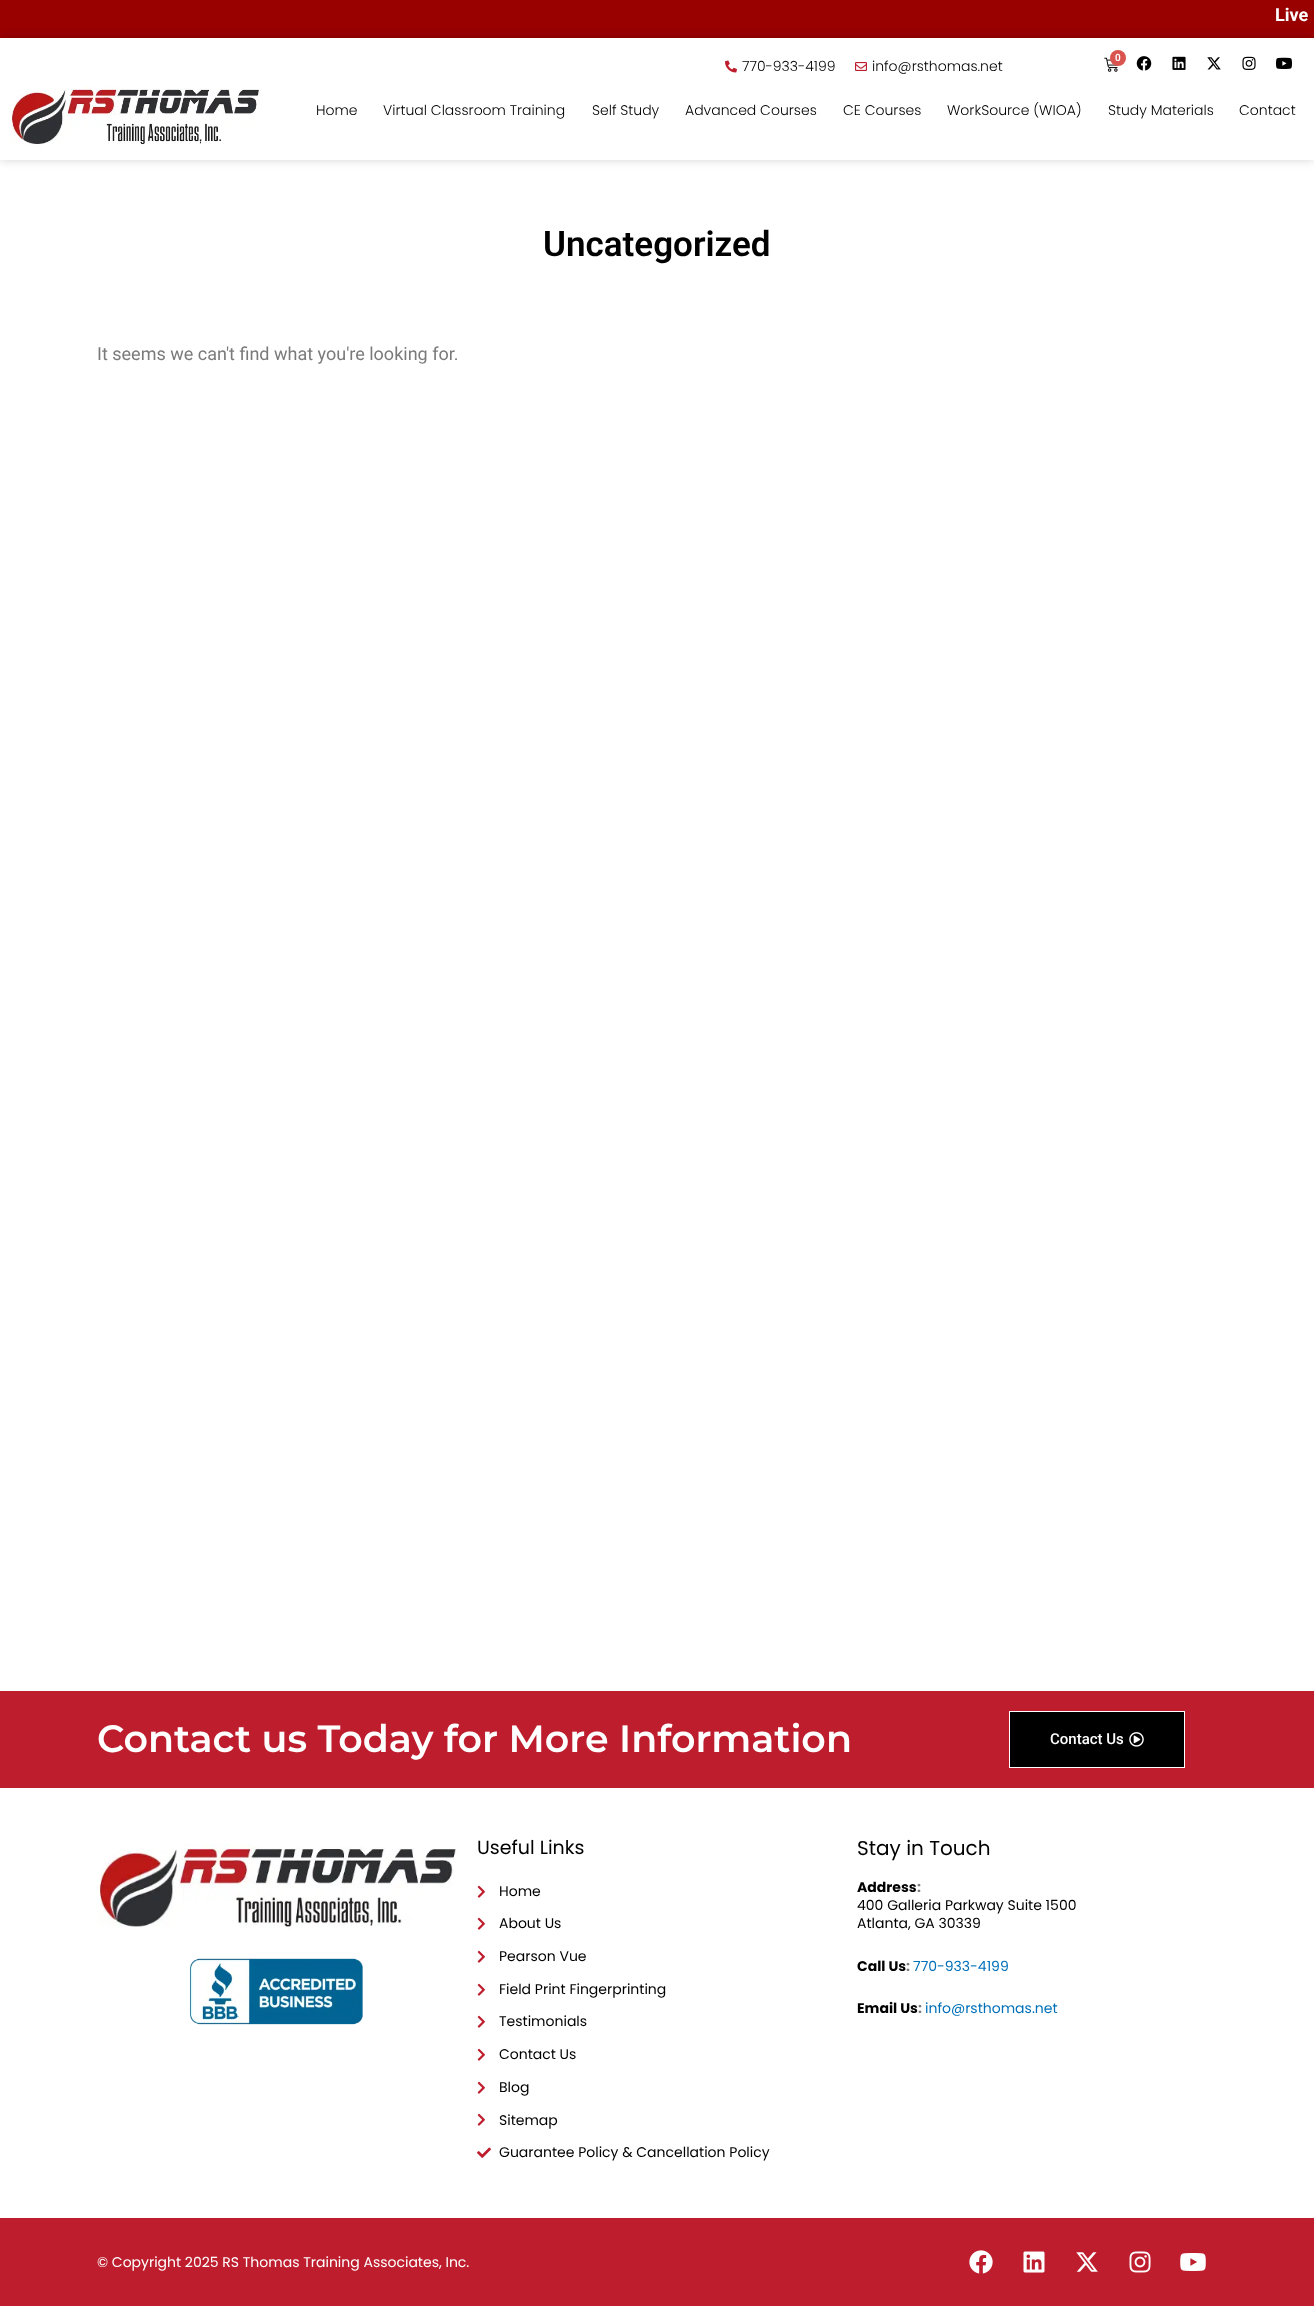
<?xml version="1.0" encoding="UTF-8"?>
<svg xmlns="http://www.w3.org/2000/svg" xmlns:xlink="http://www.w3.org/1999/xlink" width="1314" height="2306">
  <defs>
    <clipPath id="clip1"><path d="M 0 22 h 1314 v 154 h -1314 z m 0 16 h 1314 v 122 h -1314 z" clip-rule="evenodd" /></clipPath>
  </defs>
  <rect width="100%" height="100%" fill="#ffffff" />
  <rect width="1314" height="38" fill="#990000" />
  <g clip-path="url(#clip1)">
    <rect y="38" width="1314" height="122" fill="#000000" fill-opacity="0.17" filter="blur(5px)" />
  </g>
  <image x="1104" y="57" width="14" height="15" xlink:href="image1.png" />
  <circle cx="1118" cy="58" r="8" fill="#d9534f" />
  <image x="1136" y="56" width="16" height="15" xlink:href="image2.png" />
  <image x="1172" y="56" width="14" height="14" xlink:href="image3.png" />
  <image x="1207" y="57" width="14" height="13" xlink:href="image4.png" />
  <image x="1242" y="56" width="14" height="14" xlink:href="image5.png" />
  <image x="1276" y="57" width="16" height="12" xlink:href="image6.png" />
  <image x="725" y="60" width="12" height="13" xlink:href="image7.png" />
  <image x="855" y="62" width="12" height="9" xlink:href="image8.png" />
  <image x="10" y="86" width="249" height="60" xlink:href="image9.png" />
  <rect y="1691" width="1314" height="97" fill="#be1d2d" />
  <rect x="1009.5" y="1711.5" width="175" height="56" fill="#000000" stroke="#ffffff" />
  <image x="1129" y="1732" width="15" height="15" xlink:href="image10.png" />
  <image x="97" y="1844" width="360" height="85" xlink:href="image11.png" />
  <image x="189" y="1958" width="174" height="67" xlink:href="image12.png" />
  <image x="477" y="1885" width="8" height="13" xlink:href="image13.png" />
  <image x="477" y="1917" width="8" height="13" xlink:href="image13.png" />
  <image x="477" y="1950" width="8" height="13" xlink:href="image13.png" />
  <image x="477" y="1983" width="8" height="13" xlink:href="image13.png" />
  <image x="477" y="2015" width="8" height="13" xlink:href="image13.png" />
  <image x="477" y="2048" width="8" height="13" xlink:href="image13.png" />
  <image x="477" y="2081" width="8" height="13" xlink:href="image13.png" />
  <image x="477" y="2113" width="8" height="13" xlink:href="image13.png" />
  <image x="477" y="2147" width="14" height="11" xlink:href="image14.png" />
  <rect y="2218" width="1314" height="88" fill="#be1d2d" />
  <image x="969" y="2250" width="24" height="24" xlink:href="image15.png" />
  <image x="1023" y="2251" width="22" height="22" xlink:href="image16.png" />
  <image x="1076" y="2252" width="22" height="20" xlink:href="image17.png" />
  <image x="1129" y="2251" width="22" height="22" xlink:href="image18.png" />
  <image x="1180" y="2253" width="26" height="18" xlink:href="image19.png" />
  <text x="1275" y="21" style="font-family: Roboto; font-size: 18px; font-weight: bold; fill: #ffffff">Live</text>
  <text x="1115" y="61" style="font-family: Roboto; font-size: 10px; font-weight: 600; fill: #ffffff">0</text>
  <text x="742" y="71" style="font-family: Poppins; font-size: 14px; font-weight: 300; fill: #000000">770-933-4199</text>
  <text x="872" y="71" style="font-family: Poppins; font-size: 14px; font-weight: 300; fill: #000000">info@rsthomas.net</text>
  <text x="316" y="115" style="font-family: Poppins; font-size: 14px; font-weight: 300; fill: #000000">Home</text>
  <text x="383" y="115" style="font-family: Poppins; font-size: 14px; font-weight: 300; fill: #000000">Virtual Classroom Training</text>
  <text x="592" y="115" style="font-family: Poppins; font-size: 14px; font-weight: 300; fill: #000000">Self Study</text>
  <text x="685" y="115" style="font-family: Poppins; font-size: 14px; font-weight: 300; fill: #000000">Advanced Courses</text>
  <text x="843" y="115" style="font-family: Poppins; font-size: 14px; font-weight: 300; fill: #000000">CE Courses</text>
  <text x="947" y="115" style="font-family: Poppins; font-size: 14px; font-weight: 300; fill: #000000">WorkSource (WIOA)</text>
  <text x="1108" y="115" style="font-family: Poppins; font-size: 14px; font-weight: 300; fill: #000000">Study Materials</text>
  <text x="1239" y="115" style="font-family: Poppins; font-size: 14px; font-weight: 300; fill: #000000">Contact</text>
  <text x="543" y="256" style="font-family: Roboto; font-size: 35px; font-weight: 600; fill: #000000">Uncategorized</text>
  <text x="97" y="360" style="font-family: Roboto; font-size: 18px; fill: #7a7a7a">It seems we can't find what you're looking for.</text>
  <text x="97" y="1752" style="font-family: Montserrat; font-size: 38px; font-weight: 600; fill: #ffffff">Contact us Today for More Information</text>
  <text x="1050" y="1744" style="font-family: Roboto; font-size: 15px; font-weight: 500; fill: #ffffff">Contact Us</text>
  <text x="477" y="1854" style="font-family: Poppins; font-size: 19px; fill: #000000">Useful Links</text>
  <text x="499" y="1896" style="font-family: Poppins; font-size: 14px; fill: #000000">Home</text>
  <text x="499" y="1928" style="font-family: Poppins; font-size: 14px; fill: #000000">About Us</text>
  <text x="499" y="1961" style="font-family: Poppins; font-size: 14px; fill: #000000">Pearson Vue</text>
  <text x="499" y="1994" style="font-family: Poppins; font-size: 14px; fill: #000000">Field Print Fingerprinting</text>
  <text x="499" y="2026" style="font-family: Poppins; font-size: 14px; fill: #000000">Testimonials</text>
  <text x="499" y="2059" style="font-family: Poppins; font-size: 14px; fill: #000000">Contact Us</text>
  <text x="499" y="2092" style="font-family: Poppins; font-size: 14px; fill: #000000">Blog</text>
  <text x="499" y="2125" style="font-family: Poppins; font-size: 14px; fill: #000000">Sitemap</text>
  <text x="499" y="2157" style="font-family: Poppins; font-size: 14px; fill: #000000">Guarantee Policy &amp; Cancellation Policy</text>
  <text x="857" y="1855" style="font-family: Poppins; font-size: 20px; fill: #000000">Stay in Touch</text>
  <text x="857" y="1892" style="font-family: Poppins; font-size: 14px; font-weight: bold; fill: #000000">Address</text>
  <text x="917" y="1892" style="font-family: Poppins; font-size: 14px; font-weight: bold; fill: #7a7a7a">:</text>
  <text x="857" y="1910" style="font-family: Poppins; font-size: 14px; fill: #000000">400 Galleria Parkway Suite 1500</text>
  <text x="857" y="1928" style="font-family: Poppins; font-size: 14px; fill: #000000">Atlanta, GA 30339</text>
  <text x="857" y="1971" style="font-family: Poppins; font-size: 14px; font-weight: bold; fill: #000000">Call Us</text>
  <text x="906" y="1971" style="font-family: Poppins; font-size: 14px; font-weight: bold; fill: #7a7a7a">:</text>
  <text x="913" y="1971" style="font-family: Poppins; font-size: 14px; fill: #0170b9">770-933-4199</text>
  <text x="857" y="2013" style="font-family: Poppins; font-size: 14px; font-weight: bold; fill: #000000">Email Us</text>
  <text x="918" y="2013" style="font-family: Poppins; font-size: 14px; font-weight: bold; fill: #7a7a7a">:</text>
  <text x="925" y="2013" style="font-family: Poppins; font-size: 14px; fill: #0170b9">info@rsthomas.net</text>
  <text x="97" y="2267" style="font-family: Poppins; font-size: 14px; fill: #ffffff">© Copyright 2025 RS Thomas Training Associates, Inc.</text>
</svg>
